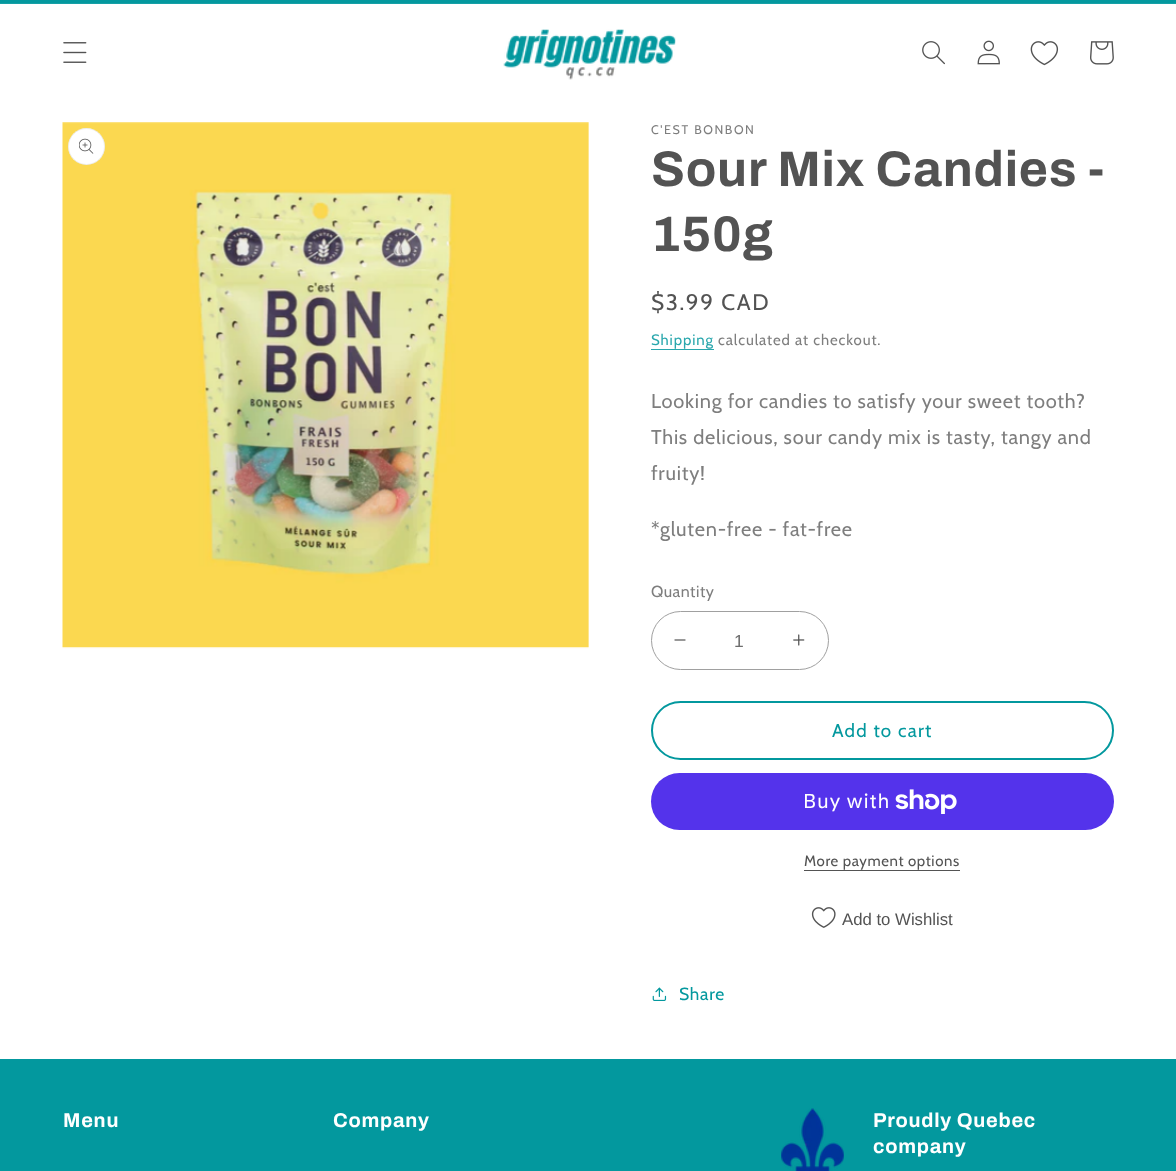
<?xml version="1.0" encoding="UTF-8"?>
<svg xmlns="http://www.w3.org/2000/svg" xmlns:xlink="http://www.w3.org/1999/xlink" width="1176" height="1171">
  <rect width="100%" height="100%" fill="#ffffff" />
  <rect width="1176" height="3" fill="#03989e" />
  <rect y="3" width="1176" height="1" fill="#17a0a6" />
  <image x="63" y="42" width="24" height="21" xlink:href="image1.png" />
  <image x="503" y="29" width="173" height="51" xlink:href="image2.png" />
  <image x="922" y="41" width="23" height="24" xlink:href="image3.png" />
  <image x="977" y="40" width="23" height="25" xlink:href="image4.png" />
  <image x="1030" y="41" width="29" height="25" xlink:href="image5.png" />
  <image x="1090" y="41" width="24" height="24" xlink:href="image6.png" />
  <image x="62" y="122" width="527" height="527" xlink:href="image7.png" />
  <circle cx="86.5" cy="146.5" r="18.5" fill="#ffffff" />
  <circle cx="86.5" cy="146.5" r="18" fill="none" stroke="#535353" stroke-opacity="0.1" />
  <image x="79" y="138" width="15" height="16" xlink:href="image8.png" />
  <rect x="651" y="349" width="63" height="1" fill="#29a7ad" />
  <image x="674" y="639" width="12" height="2" xlink:href="image9.png" />
  <image x="793" y="634" width="12" height="12" xlink:href="image10.png" />
  <rect x="651.5" y="611.5" width="177" height="58" rx="29" fill="none" stroke="#a0a0a0" />
  <rect x="652" y="702" width="461" height="57" rx="28.5" fill="none" stroke="#03989e" stroke-width="2" />
  <rect x="651" y="773" width="463" height="57" rx="28.5" fill="#5433eb" />
  <image x="895" y="789" width="62" height="25" xlink:href="image11.png" />
  <rect x="804" y="870" width="156" height="1" fill="#535353" />
  <image x="811" y="907" width="25" height="21" xlink:href="image12.png" />
  <image x="652" y="987" width="15" height="14" xlink:href="image13.png" />
  <rect y="1059" width="1176" height="112" fill="#03989e" />
  <image x="781" y="1108" width="63" height="63" xlink:href="image14.png" />
  <text x="651" y="134" style="font-family: Cabin; font-size: 12.5px; letter-spacing: 1.6px; fill: #7e7e7e">C'EST BONBON</text>
  <text x="651" y="186" style="font-family: Archivo; font-size: 50px; font-weight: bold; letter-spacing: 0.75px; fill: #535353">Sour Mix Candies -</text>
  <text x="651" y="251" style="font-family: Archivo; font-size: 50px; font-weight: bold; letter-spacing: 0.75px; fill: #535353">150g</text>
  <text x="651" y="310" style="font-family: Cabin; font-size: 22.5px; letter-spacing: 1.6px; fill: #535353">$3.99 CAD</text>
  <text x="651" y="345" style="font-family: Cabin; font-size: 15px; letter-spacing: 0.9px; fill: #29a7ad">Shipping</text>
  <text x="718" y="345" style="font-family: Cabin; font-size: 15px; letter-spacing: 0.9px; fill: #7e7e7e">calculated at checkout.</text>
  <text x="651" y="408" style="font-family: Cabin; font-size: 20px; letter-spacing: 0.75px; fill: #7e7e7e">Looking for candies to satisfy your sweet tooth?</text>
  <text x="651" y="444" style="font-family: Cabin; font-size: 20px; letter-spacing: 0.75px; fill: #7e7e7e">This delicious, sour candy mix is tasty, tangy and</text>
  <text x="651" y="480" style="font-family: Cabin; font-size: 20px; letter-spacing: 0.75px; fill: #7e7e7e">fruity!</text>
  <text x="651" y="536" style="font-family: Cabin; font-size: 20px; letter-spacing: 0.75px; fill: #7e7e7e">*gluten-free - fat-free</text>
  <text x="651" y="597" style="font-family: Cabin; font-size: 16px; letter-spacing: 0.5px; fill: #7e7e7e">Quantity</text>
  <text x="734" y="647" style="font-family: Liberation Sans; font-size: 17.5px; fill: #6d6d6d">1</text>
  <text x="832" y="737" style="font-family: Cabin; font-size: 18.75px; letter-spacing: 1.25px; fill: #03989e">Add to cart</text>
  <text x="803" y="808" style="font-family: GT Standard; font-size: 20px; letter-spacing: 0.75px; fill: #ffffff">Buy with</text>
  <text x="804" y="866" style="font-family: Cabin; font-size: 15px; letter-spacing: 0.6px; fill: #535353">More payment options</text>
  <text x="842" y="925" style="font-family: Liberation Sans; font-size: 16.75px; fill: #535353">Add to Wishlist</text>
  <text x="679" y="1000" style="font-family: Cabin; font-size: 17.5px; letter-spacing: 0.75px; fill: #03989e">Share</text>
  <text x="63" y="1127" style="font-family: Archivo; font-size: 20px; font-weight: bold; letter-spacing: 0.75px; fill: #ffffff">Menu</text>
  <text x="333" y="1127" style="font-family: Archivo; font-size: 20px; font-weight: bold; letter-spacing: 0.75px; fill: #ffffff">Company</text>
  <text x="873" y="1127" style="font-family: Archivo; font-size: 20px; font-weight: bold; letter-spacing: 0.75px; fill: #ffffff">Proudly Quebec</text>
  <text x="873" y="1153" style="font-family: Archivo; font-size: 20px; font-weight: bold; letter-spacing: 0.75px; fill: #ffffff">company</text>
</svg>
